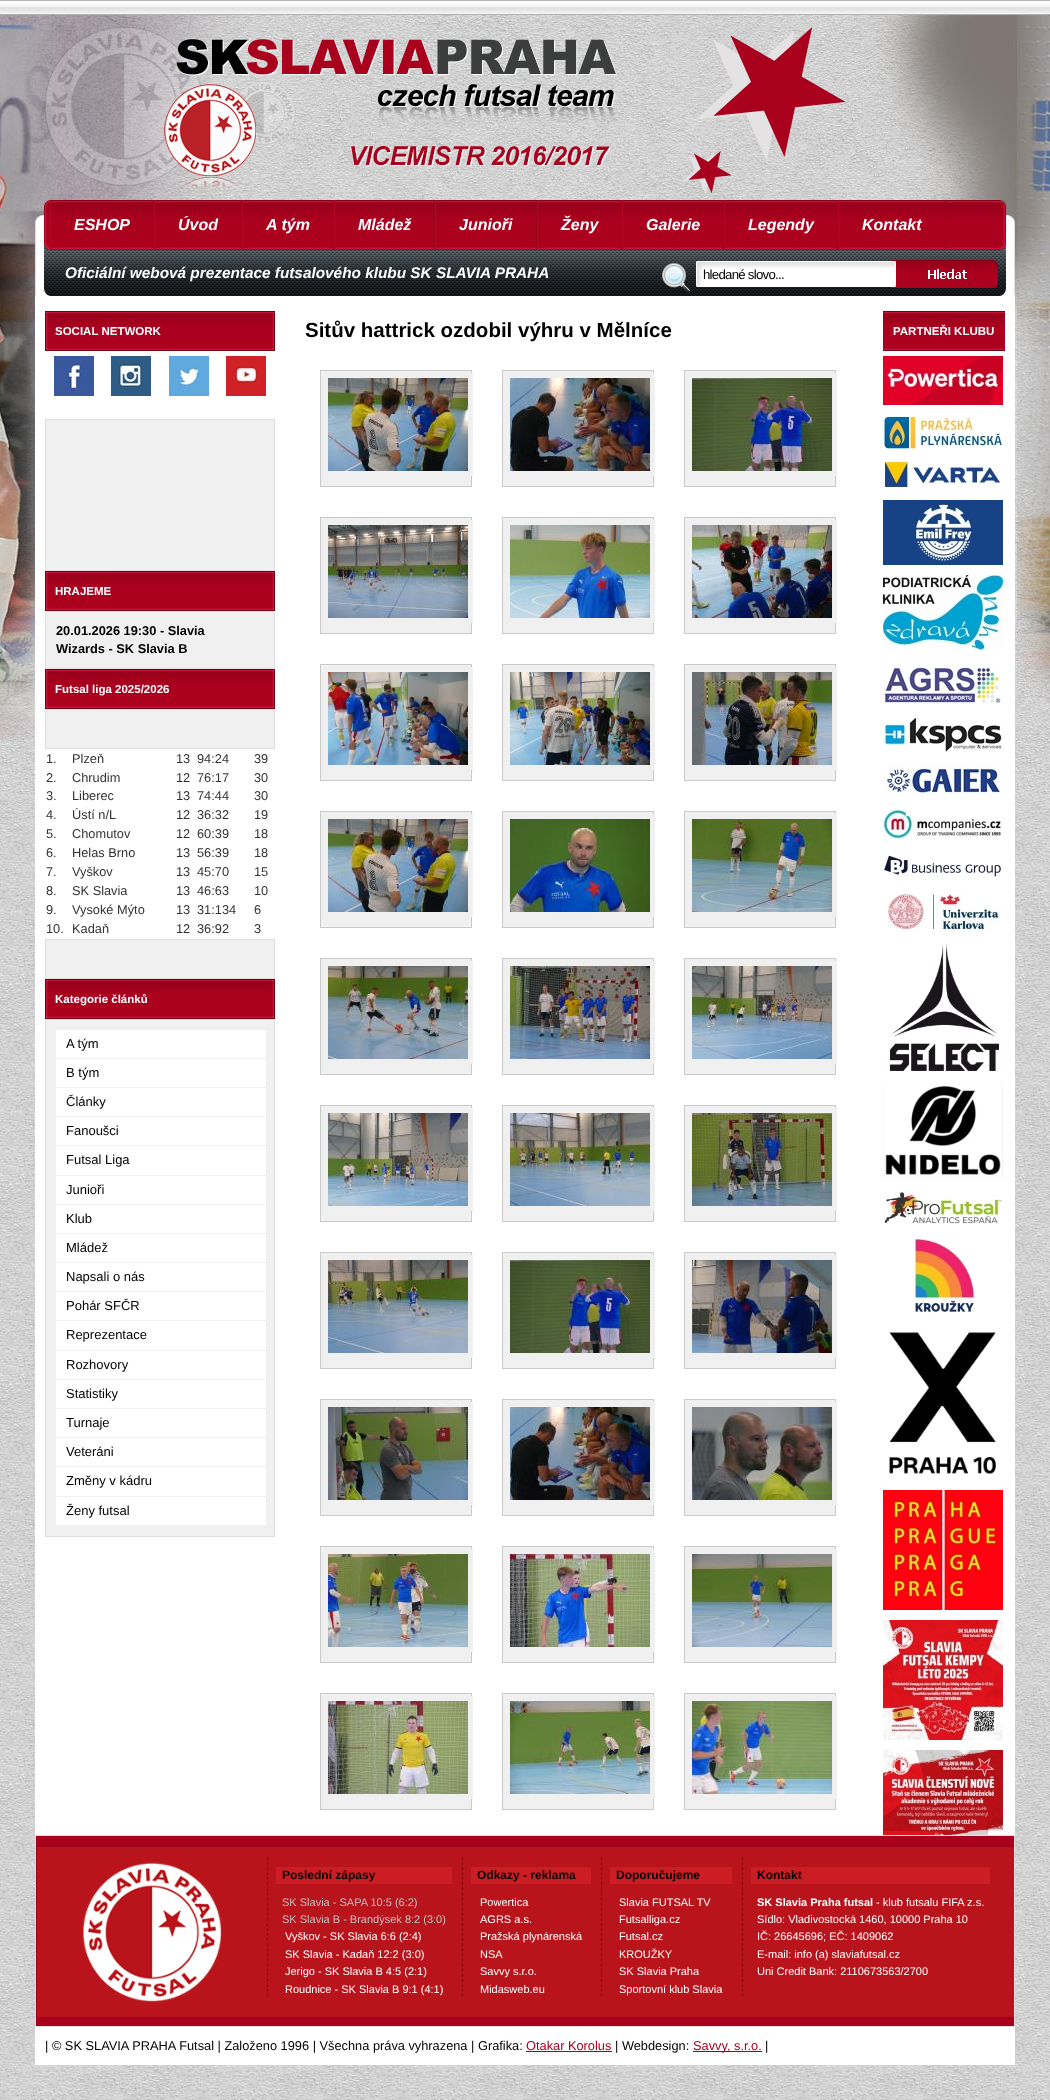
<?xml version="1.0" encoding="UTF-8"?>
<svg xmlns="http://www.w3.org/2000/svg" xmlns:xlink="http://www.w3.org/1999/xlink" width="1050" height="2100">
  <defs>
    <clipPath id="clip1"><rect x="36" y="1836" width="978" height="190" /></clipPath>
  </defs>
  <rect width="100%" height="100%" fill="#ffffff" />
  <image x="0" y="800" width="1050" height="1300" xlink:href="image1.png" />
  <image x="0" y="0" width="1050" height="8" xlink:href="image2.png" />
  <image x="0" y="8" width="1050" height="792" xlink:href="image3.png" />
  <image x="44" y="8" width="897" height="186" xlink:href="image4.png" />
  <image x="35" y="200" width="980" height="96" xlink:href="image5.png" />
  <rect x="153" y="200" width="1" height="50" fill="#92001a" />
  <rect x="50" y="200" width="1" height="50" fill="#b60628" />
  <rect x="241" y="200" width="1" height="50" fill="#92001a" />
  <rect x="154" y="200" width="1" height="50" fill="#b60628" />
  <rect x="333" y="200" width="1" height="50" fill="#92001a" />
  <rect x="242" y="200" width="1" height="50" fill="#b60628" />
  <rect x="434" y="200" width="1" height="50" fill="#92001a" />
  <rect x="334" y="200" width="1" height="50" fill="#b60628" />
  <rect x="536" y="200" width="1" height="50" fill="#92001a" />
  <rect x="435" y="200" width="1" height="50" fill="#b60628" />
  <rect x="621" y="200" width="1" height="50" fill="#92001a" />
  <rect x="537" y="200" width="1" height="50" fill="#b60628" />
  <rect x="723" y="200" width="1" height="50" fill="#92001a" />
  <rect x="622" y="200" width="1" height="50" fill="#b60628" />
  <rect x="837" y="200" width="1" height="50" fill="#92001a" />
  <rect x="724" y="200" width="1" height="50" fill="#b60628" />
  <rect x="945" y="200" width="1" height="50" fill="#92001a" />
  <rect x="838" y="200" width="1" height="50" fill="#b60628" />
  <image x="662" y="260" width="336" height="33" xlink:href="image6.png" />
  <rect x="35" y="296" width="980" height="1539" fill="#ffffff" />
  <image x="45" y="311" width="230" height="40" xlink:href="image7.png" />
  <image x="54" y="356" width="40" height="40" xlink:href="image8.png" />
  <image x="111" y="356" width="40" height="40" xlink:href="image9.png" />
  <image x="169" y="356" width="40" height="40" xlink:href="image10.png" />
  <image x="226" y="356" width="40" height="40" xlink:href="image11.png" />
  <rect x="45.5" y="419.5" width="229" height="151" fill="#f0f0f0" stroke="#dfdfdf" />
  <image x="45" y="571" width="230" height="40" xlink:href="image7.png" />
  <rect x="45.5" y="611.5" width="229" height="57" fill="#f0f0f0" stroke="#dfdfdf" />
  <image x="45" y="669" width="230" height="40" xlink:href="image7.png" />
  <rect x="45.5" y="709.5" width="229" height="39" fill="#f0f0f0" stroke="#dfdfdf" />
  <rect x="45.5" y="939.5" width="229" height="39" fill="#f0f0f0" stroke="#dfdfdf" />
  <image x="45" y="979" width="230" height="40" xlink:href="image7.png" />
  <rect x="45.5" y="1019.5" width="229" height="517" fill="#f0f0f0" stroke="#dfdfdf" />
  <rect x="56" y="1030" width="210" height="28" fill="#ffffff" />
  <rect x="56" y="1059" width="210" height="28" fill="#ffffff" />
  <rect x="56" y="1088" width="210" height="28" fill="#ffffff" />
  <rect x="56" y="1117" width="210" height="28" fill="#ffffff" />
  <rect x="56" y="1146" width="210" height="29" fill="#ffffff" />
  <rect x="56" y="1176" width="210" height="28" fill="#ffffff" />
  <rect x="56" y="1205" width="210" height="28" fill="#ffffff" />
  <rect x="56" y="1234" width="210" height="28" fill="#ffffff" />
  <rect x="56" y="1263" width="210" height="28" fill="#ffffff" />
  <rect x="56" y="1292" width="210" height="28" fill="#ffffff" />
  <rect x="56" y="1321" width="210" height="29" fill="#ffffff" />
  <rect x="56" y="1351" width="210" height="28" fill="#ffffff" />
  <rect x="56" y="1380" width="210" height="28" fill="#ffffff" />
  <rect x="56" y="1409" width="210" height="28" fill="#ffffff" />
  <rect x="56" y="1438" width="210" height="28" fill="#ffffff" />
  <rect x="56" y="1467" width="210" height="29" fill="#ffffff" />
  <rect x="56" y="1497" width="210" height="28" fill="#ffffff" />
  <rect x="320.5" y="370.5" width="151" height="116" fill="#f0f0f0" stroke="#cacaca" />
  <rect x="471" y="373" width="2" height="103" fill="#f0f0f0" />
  <image x="328" y="378" width="140" height="93" xlink:href="image12.png" />
  <rect x="502.5" y="370.5" width="151" height="116" fill="#f0f0f0" stroke="#cacaca" />
  <rect x="653" y="373" width="2" height="103" fill="#f0f0f0" />
  <image x="510" y="378" width="140" height="93" xlink:href="image13.png" />
  <rect x="684.5" y="370.5" width="151" height="116" fill="#f0f0f0" stroke="#cacaca" />
  <rect x="835" y="373" width="2" height="103" fill="#f0f0f0" />
  <image x="692" y="378" width="140" height="93" xlink:href="image14.png" />
  <rect x="320.5" y="517.5" width="151" height="116" fill="#f0f0f0" stroke="#cacaca" />
  <rect x="471" y="520" width="2" height="103" fill="#f0f0f0" />
  <image x="328" y="525" width="140" height="93" xlink:href="image15.png" />
  <rect x="502.5" y="517.5" width="151" height="116" fill="#f0f0f0" stroke="#cacaca" />
  <rect x="653" y="520" width="2" height="103" fill="#f0f0f0" />
  <image x="510" y="525" width="140" height="93" xlink:href="image16.png" />
  <rect x="684.5" y="517.5" width="151" height="116" fill="#f0f0f0" stroke="#cacaca" />
  <rect x="835" y="520" width="2" height="103" fill="#f0f0f0" />
  <image x="692" y="525" width="140" height="93" xlink:href="image17.png" />
  <rect x="320.5" y="664.5" width="151" height="116" fill="#f0f0f0" stroke="#cacaca" />
  <rect x="471" y="667" width="2" height="103" fill="#f0f0f0" />
  <image x="328" y="672" width="140" height="93" xlink:href="image18.png" />
  <rect x="502.5" y="664.5" width="151" height="116" fill="#f0f0f0" stroke="#cacaca" />
  <rect x="653" y="667" width="2" height="103" fill="#f0f0f0" />
  <image x="510" y="672" width="140" height="93" xlink:href="image19.png" />
  <rect x="684.5" y="664.5" width="151" height="116" fill="#f0f0f0" stroke="#cacaca" />
  <rect x="835" y="667" width="2" height="103" fill="#f0f0f0" />
  <image x="692" y="672" width="140" height="93" xlink:href="image20.png" />
  <rect x="320.5" y="811.5" width="151" height="116" fill="#f0f0f0" stroke="#cacaca" />
  <rect x="471" y="814" width="2" height="103" fill="#f0f0f0" />
  <image x="328" y="819" width="140" height="93" xlink:href="image12.png" />
  <rect x="502.5" y="811.5" width="151" height="116" fill="#f0f0f0" stroke="#cacaca" />
  <rect x="653" y="814" width="2" height="103" fill="#f0f0f0" />
  <image x="510" y="819" width="140" height="93" xlink:href="image21.png" />
  <rect x="684.5" y="811.5" width="151" height="116" fill="#f0f0f0" stroke="#cacaca" />
  <rect x="835" y="814" width="2" height="103" fill="#f0f0f0" />
  <image x="692" y="819" width="140" height="93" xlink:href="image22.png" />
  <rect x="320.5" y="958.5" width="151" height="116" fill="#f0f0f0" stroke="#cacaca" />
  <rect x="471" y="961" width="2" height="103" fill="#f0f0f0" />
  <image x="328" y="966" width="140" height="93" xlink:href="image23.png" />
  <rect x="502.5" y="958.5" width="151" height="116" fill="#f0f0f0" stroke="#cacaca" />
  <rect x="653" y="961" width="2" height="103" fill="#f0f0f0" />
  <image x="510" y="966" width="140" height="93" xlink:href="image24.png" />
  <rect x="684.5" y="958.5" width="151" height="116" fill="#f0f0f0" stroke="#cacaca" />
  <rect x="835" y="961" width="2" height="103" fill="#f0f0f0" />
  <image x="692" y="966" width="140" height="93" xlink:href="image25.png" />
  <rect x="320.5" y="1105.5" width="151" height="116" fill="#f0f0f0" stroke="#cacaca" />
  <rect x="471" y="1108" width="2" height="103" fill="#f0f0f0" />
  <image x="328" y="1113" width="140" height="93" xlink:href="image26.png" />
  <rect x="502.5" y="1105.5" width="151" height="116" fill="#f0f0f0" stroke="#cacaca" />
  <rect x="653" y="1108" width="2" height="103" fill="#f0f0f0" />
  <image x="510" y="1113" width="140" height="93" xlink:href="image27.png" />
  <rect x="684.5" y="1105.5" width="151" height="116" fill="#f0f0f0" stroke="#cacaca" />
  <rect x="835" y="1108" width="2" height="103" fill="#f0f0f0" />
  <image x="692" y="1113" width="140" height="93" xlink:href="image28.png" />
  <rect x="320.5" y="1252.5" width="151" height="116" fill="#f0f0f0" stroke="#cacaca" />
  <rect x="471" y="1255" width="2" height="103" fill="#f0f0f0" />
  <image x="328" y="1260" width="140" height="93" xlink:href="image29.png" />
  <rect x="502.5" y="1252.5" width="151" height="116" fill="#f0f0f0" stroke="#cacaca" />
  <rect x="653" y="1255" width="2" height="103" fill="#f0f0f0" />
  <image x="510" y="1260" width="140" height="93" xlink:href="image14.png" />
  <rect x="684.5" y="1252.5" width="151" height="116" fill="#f0f0f0" stroke="#cacaca" />
  <rect x="835" y="1255" width="2" height="103" fill="#f0f0f0" />
  <image x="692" y="1260" width="140" height="93" xlink:href="image30.png" />
  <rect x="320.5" y="1399.5" width="151" height="116" fill="#f0f0f0" stroke="#cacaca" />
  <rect x="471" y="1402" width="2" height="103" fill="#f0f0f0" />
  <image x="328" y="1407" width="140" height="93" xlink:href="image31.png" />
  <rect x="502.5" y="1399.5" width="151" height="116" fill="#f0f0f0" stroke="#cacaca" />
  <rect x="653" y="1402" width="2" height="103" fill="#f0f0f0" />
  <image x="510" y="1407" width="140" height="93" xlink:href="image13.png" />
  <rect x="684.5" y="1399.5" width="151" height="116" fill="#f0f0f0" stroke="#cacaca" />
  <rect x="835" y="1402" width="2" height="103" fill="#f0f0f0" />
  <image x="692" y="1407" width="140" height="93" xlink:href="image32.png" />
  <rect x="320.5" y="1546.5" width="151" height="116" fill="#f0f0f0" stroke="#cacaca" />
  <rect x="471" y="1549" width="2" height="103" fill="#f0f0f0" />
  <image x="328" y="1554" width="140" height="93" xlink:href="image33.png" />
  <rect x="502.5" y="1546.5" width="151" height="116" fill="#f0f0f0" stroke="#cacaca" />
  <rect x="653" y="1549" width="2" height="103" fill="#f0f0f0" />
  <image x="510" y="1554" width="140" height="93" xlink:href="image34.png" />
  <rect x="684.5" y="1546.5" width="151" height="116" fill="#f0f0f0" stroke="#cacaca" />
  <rect x="835" y="1549" width="2" height="103" fill="#f0f0f0" />
  <image x="692" y="1554" width="140" height="93" xlink:href="image35.png" />
  <rect x="320.5" y="1693.5" width="151" height="116" fill="#f0f0f0" stroke="#cacaca" />
  <rect x="471" y="1696" width="2" height="103" fill="#f0f0f0" />
  <image x="328" y="1701" width="140" height="93" xlink:href="image36.png" />
  <rect x="502.5" y="1693.5" width="151" height="116" fill="#f0f0f0" stroke="#cacaca" />
  <rect x="653" y="1696" width="2" height="103" fill="#f0f0f0" />
  <image x="510" y="1701" width="140" height="93" xlink:href="image37.png" />
  <rect x="684.5" y="1693.5" width="151" height="116" fill="#f0f0f0" stroke="#cacaca" />
  <rect x="835" y="1696" width="2" height="103" fill="#f0f0f0" />
  <image x="692" y="1701" width="140" height="93" xlink:href="image38.png" />
  <image x="883" y="311" width="122" height="40" xlink:href="image39.png" />
  <image x="883" y="356" width="120" height="49" xlink:href="image40.png" />
  <image x="883" y="416" width="120" height="34" xlink:href="image41.png" />
  <image x="884" y="461" width="116" height="27" xlink:href="image42.png" />
  <image x="883" y="500" width="120" height="65" xlink:href="image43.png" />
  <image x="883" y="575" width="120" height="75" xlink:href="image44.png" />
  <image x="885" y="667" width="116" height="36" xlink:href="image45.png" />
  <image x="884" y="717" width="118" height="35" xlink:href="image46.png" />
  <image x="883" y="763" width="120" height="32" xlink:href="image47.png" />
  <image x="883" y="809" width="118" height="30" xlink:href="image48.png" />
  <image x="884" y="855" width="117" height="22" xlink:href="image49.png" />
  <image x="883" y="890" width="120" height="43" xlink:href="image50.png" />
  <image x="890" y="944" width="109" height="127" xlink:href="image51.png" />
  <image x="883" y="1085" width="120" height="93" xlink:href="image52.png" />
  <image x="884" y="1192" width="118" height="32" xlink:href="image53.png" />
  <image x="914" y="1239" width="62" height="74" xlink:href="image54.png" />
  <image x="889" y="1332" width="107" height="142" xlink:href="image55.png" />
  <image x="883" y="1490" width="120" height="120" xlink:href="image56.png" />
  <image x="883" y="1620" width="120" height="120" xlink:href="image57.png" />
  <image x="883" y="1750" width="120" height="85" xlink:href="image58.png" />
  <rect x="35.5" y="1835.5" width="979" height="191" fill="#a8001d" stroke="#dfdfdf" />
  <rect x="37" y="1847" width="977" height="170" fill="#b9141b" />
  <g clip-path="url(#clip1)">
    <rect x="36.5" y="1846.5" width="979" height="171" fill="none" stroke="#96011c" />
  </g>
  <image x="82" y="1862" width="140" height="140" xlink:href="image59.png" />
  <path d="M 267.5 1857 v 140" fill="none" stroke="#810106" stroke-dasharray="3 2.07" />
  <rect x="276" y="1867" width="176" height="17" fill="#cd1d24" />
  <path d="M 462.5 1857 v 140" fill="none" stroke="#810106" stroke-dasharray="3 2.07" />
  <rect x="471" y="1867" width="120" height="17" fill="#cd1d24" />
  <path d="M 601.5 1857 v 140" fill="none" stroke="#810106" stroke-dasharray="3 2.07" />
  <rect x="610" y="1867" width="122" height="17" fill="#cd1d24" />
  <path d="M 742.5 1857 v 140" fill="none" stroke="#810106" stroke-dasharray="3 2.07" />
  <rect x="751" y="1867" width="239" height="17" fill="#cd1d24" />
  <rect x="35" y="2027" width="980" height="38" fill="#ffffff" />
  <rect x="526" y="2051" width="86" height="1" fill="#a8001d" />
  <rect x="693" y="2051" width="69" height="1" fill="#a8001d" />
  <text x="74" y="230" style="font-family: Liberation Sans; font-size: 16px; font-weight: bold; font-style: italic; fill: #ffffff">ESHOP</text>
  <text x="178" y="230" style="font-family: Liberation Sans; font-size: 16px; font-weight: bold; font-style: italic; fill: #ffffff">Úvod</text>
  <text x="266" y="230" style="font-family: Liberation Sans; font-size: 16px; font-weight: bold; font-style: italic; fill: #ffffff">A tým</text>
  <text x="358" y="230" style="font-family: Liberation Sans; font-size: 16px; font-weight: bold; font-style: italic; fill: #ffffff">Mládež</text>
  <text x="459" y="230" style="font-family: Liberation Sans; font-size: 16px; font-weight: bold; font-style: italic; fill: #ffffff">Junioři</text>
  <text x="561" y="230" style="font-family: Liberation Sans; font-size: 16px; font-weight: bold; font-style: italic; fill: #ffffff">Ženy</text>
  <text x="646" y="230" style="font-family: Liberation Sans; font-size: 16px; font-weight: bold; font-style: italic; fill: #ffffff">Galerie</text>
  <text x="748" y="230" style="font-family: Liberation Sans; font-size: 16px; font-weight: bold; font-style: italic; fill: #ffffff">Legendy</text>
  <text x="862" y="230" style="font-family: Liberation Sans; font-size: 16px; font-weight: bold; font-style: italic; fill: #ffffff">Kontakt</text>
  <text x="65" y="278" style="font-family: Liberation Sans; font-size: 15.35px; font-weight: bold; font-style: italic; fill: #ffffff">Oficiální webová prezentace futsalového klubu SK SLAVIA PRAHA</text>
  <text x="703" y="279" style="font-family: Liberation Sans; font-size: 13.25px; letter-spacing: -0.75px; fill: #000000">hledané slovo...</text>
  <text x="55" y="335" style="font-family: Liberation Sans; font-size: 11.5px; font-weight: bold; fill: #ffffff">SOCIAL NETWORK</text>
  <text x="55" y="595" style="font-family: Liberation Sans; font-size: 11.5px; font-weight: bold; fill: #ffffff">HRAJEME</text>
  <text x="56" y="635" style="font-family: Liberation Sans; font-size: 12.8px; font-weight: bold; fill: #000000">20.01.2026 19:30 - Slavia</text>
  <text x="56" y="653" style="font-family: Liberation Sans; font-size: 12.8px; font-weight: bold; fill: #000000">Wizards - SK Slavia B</text>
  <text x="55" y="693" style="font-family: Liberation Sans; font-size: 11.5px; font-weight: bold; fill: #ffffff">Futsal liga 2025/2026</text>
  <text x="46" y="763" style="font-family: Liberation Sans; font-size: 12.8px; fill: #333333">1.</text>
  <text x="72" y="763" style="font-family: Liberation Sans; font-size: 12.8px; fill: #333333">Plzeň</text>
  <text x="176" y="763" style="font-family: Liberation Sans; font-size: 12.8px; fill: #333333">13</text>
  <text x="197" y="763" style="font-family: Liberation Sans; font-size: 12.8px; fill: #333333">94:24</text>
  <text x="254" y="763" style="font-family: Liberation Sans; font-size: 12.8px; fill: #333333">39</text>
  <text x="46" y="782" style="font-family: Liberation Sans; font-size: 12.8px; fill: #333333">2.</text>
  <text x="72" y="782" style="font-family: Liberation Sans; font-size: 12.8px; fill: #333333">Chrudim</text>
  <text x="176" y="782" style="font-family: Liberation Sans; font-size: 12.8px; fill: #333333">12</text>
  <text x="197" y="782" style="font-family: Liberation Sans; font-size: 12.8px; fill: #333333">76:17</text>
  <text x="254" y="782" style="font-family: Liberation Sans; font-size: 12.8px; fill: #333333">30</text>
  <text x="46" y="800" style="font-family: Liberation Sans; font-size: 12.8px; fill: #333333">3.</text>
  <text x="72" y="800" style="font-family: Liberation Sans; font-size: 12.8px; fill: #333333">Liberec</text>
  <text x="176" y="800" style="font-family: Liberation Sans; font-size: 12.8px; fill: #333333">13</text>
  <text x="197" y="800" style="font-family: Liberation Sans; font-size: 12.8px; fill: #333333">74:44</text>
  <text x="254" y="800" style="font-family: Liberation Sans; font-size: 12.8px; fill: #333333">30</text>
  <text x="46" y="819" style="font-family: Liberation Sans; font-size: 12.8px; fill: #333333">4.</text>
  <text x="72" y="819" style="font-family: Liberation Sans; font-size: 12.8px; fill: #333333">Ústí n/L</text>
  <text x="176" y="819" style="font-family: Liberation Sans; font-size: 12.8px; fill: #333333">12</text>
  <text x="197" y="819" style="font-family: Liberation Sans; font-size: 12.8px; fill: #333333">36:32</text>
  <text x="254" y="819" style="font-family: Liberation Sans; font-size: 12.8px; fill: #333333">19</text>
  <text x="46" y="838" style="font-family: Liberation Sans; font-size: 12.8px; fill: #333333">5.</text>
  <text x="72" y="838" style="font-family: Liberation Sans; font-size: 12.8px; fill: #333333">Chomutov</text>
  <text x="176" y="838" style="font-family: Liberation Sans; font-size: 12.8px; fill: #333333">12</text>
  <text x="197" y="838" style="font-family: Liberation Sans; font-size: 12.8px; fill: #333333">60:39</text>
  <text x="254" y="838" style="font-family: Liberation Sans; font-size: 12.8px; fill: #333333">18</text>
  <text x="46" y="857" style="font-family: Liberation Sans; font-size: 12.8px; fill: #333333">6.</text>
  <text x="72" y="857" style="font-family: Liberation Sans; font-size: 12.8px; fill: #333333">Helas Brno</text>
  <text x="176" y="857" style="font-family: Liberation Sans; font-size: 12.8px; fill: #333333">13</text>
  <text x="197" y="857" style="font-family: Liberation Sans; font-size: 12.8px; fill: #333333">56:39</text>
  <text x="254" y="857" style="font-family: Liberation Sans; font-size: 12.8px; fill: #333333">18</text>
  <text x="46" y="876" style="font-family: Liberation Sans; font-size: 12.8px; fill: #333333">7.</text>
  <text x="72" y="876" style="font-family: Liberation Sans; font-size: 12.8px; fill: #333333">Vyškov</text>
  <text x="176" y="876" style="font-family: Liberation Sans; font-size: 12.8px; fill: #333333">13</text>
  <text x="197" y="876" style="font-family: Liberation Sans; font-size: 12.8px; fill: #333333">45:70</text>
  <text x="254" y="876" style="font-family: Liberation Sans; font-size: 12.8px; fill: #333333">15</text>
  <text x="46" y="895" style="font-family: Liberation Sans; font-size: 12.8px; fill: #333333">8.</text>
  <text x="72" y="895" style="font-family: Liberation Sans; font-size: 12.8px; fill: #333333">SK Slavia</text>
  <text x="176" y="895" style="font-family: Liberation Sans; font-size: 12.8px; fill: #333333">13</text>
  <text x="197" y="895" style="font-family: Liberation Sans; font-size: 12.8px; fill: #333333">46:63</text>
  <text x="254" y="895" style="font-family: Liberation Sans; font-size: 12.8px; fill: #333333">10</text>
  <text x="46" y="914" style="font-family: Liberation Sans; font-size: 12.8px; fill: #333333">9.</text>
  <text x="72" y="914" style="font-family: Liberation Sans; font-size: 12.8px; fill: #333333">Vysoké Mýto</text>
  <text x="176" y="914" style="font-family: Liberation Sans; font-size: 12.8px; fill: #333333">13</text>
  <text x="197" y="914" style="font-family: Liberation Sans; font-size: 12.8px; fill: #333333">31:134</text>
  <text x="254" y="914" style="font-family: Liberation Sans; font-size: 12.8px; fill: #333333">6</text>
  <text x="46" y="933" style="font-family: Liberation Sans; font-size: 12.8px; fill: #333333">10.</text>
  <text x="72" y="933" style="font-family: Liberation Sans; font-size: 12.8px; fill: #333333">Kadaň</text>
  <text x="176" y="933" style="font-family: Liberation Sans; font-size: 12.8px; fill: #333333">12</text>
  <text x="197" y="933" style="font-family: Liberation Sans; font-size: 12.8px; fill: #333333">36:92</text>
  <text x="254" y="933" style="font-family: Liberation Sans; font-size: 12.8px; fill: #333333">3</text>
  <text x="55" y="1003" style="font-family: Liberation Sans; font-size: 11.5px; font-weight: bold; fill: #ffffff">Kategorie článků</text>
  <text x="66" y="1048" style="font-family: Liberation Sans; font-size: 13px; fill: #000000">A tým</text>
  <text x="66" y="1077" style="font-family: Liberation Sans; font-size: 13px; fill: #000000">B tým</text>
  <text x="66" y="1106" style="font-family: Liberation Sans; font-size: 13px; fill: #000000">Články</text>
  <text x="66" y="1135" style="font-family: Liberation Sans; font-size: 13px; fill: #000000">Fanoušci</text>
  <text x="66" y="1164" style="font-family: Liberation Sans; font-size: 13px; fill: #000000">Futsal Liga</text>
  <text x="66" y="1194" style="font-family: Liberation Sans; font-size: 13px; fill: #000000">Junioři</text>
  <text x="66" y="1223" style="font-family: Liberation Sans; font-size: 13px; fill: #000000">Klub</text>
  <text x="66" y="1252" style="font-family: Liberation Sans; font-size: 13px; fill: #000000">Mládež</text>
  <text x="66" y="1281" style="font-family: Liberation Sans; font-size: 13px; fill: #000000">Napsali o nás</text>
  <text x="66" y="1310" style="font-family: Liberation Sans; font-size: 13px; fill: #000000">Pohár SFČR</text>
  <text x="66" y="1339" style="font-family: Liberation Sans; font-size: 13px; fill: #000000">Reprezentace</text>
  <text x="66" y="1369" style="font-family: Liberation Sans; font-size: 13px; fill: #000000">Rozhovory</text>
  <text x="66" y="1398" style="font-family: Liberation Sans; font-size: 13px; fill: #000000">Statistiky</text>
  <text x="66" y="1427" style="font-family: Liberation Sans; font-size: 13px; fill: #000000">Turnaje</text>
  <text x="66" y="1456" style="font-family: Liberation Sans; font-size: 13px; fill: #000000">Veteráni</text>
  <text x="66" y="1485" style="font-family: Liberation Sans; font-size: 13px; fill: #000000">Změny v kádru</text>
  <text x="66" y="1515" style="font-family: Liberation Sans; font-size: 13px; fill: #000000">Ženy futsal</text>
  <text x="305" y="337" style="font-family: Liberation Sans; font-size: 20.5px; font-weight: bold; fill: #000000">Sitův hattrick ozdobil výhru v Mělníce</text>
  <text x="893" y="335" style="font-family: Liberation Sans; font-size: 11.5px; font-weight: bold; fill: #ffffff">PARTNEŘI KLUBU</text>
  <text x="282" y="1879" style="font-family: Liberation Sans; font-size: 12px; font-weight: bold; fill: #000000">Poslední zápasy</text>
  <text x="282" y="1906" style="font-family: Liberation Sans; font-size: 11px; fill: #c0c0c0">SK Slavia - SAPA 10:5 (6:2)</text>
  <text x="282" y="1923" style="font-family: Liberation Sans; font-size: 11px; fill: #c0c0c0">SK Slavia B - Brandýsek 8:2 (3:0)</text>
  <text x="285" y="1940" style="font-family: Liberation Sans; font-size: 11px; fill: #ffffff">Vyškov - SK Slavia 6:6 (2:4)</text>
  <text x="285" y="1958" style="font-family: Liberation Sans; font-size: 11px; fill: #ffffff">SK Slavia - Kadaň 12:2 (3:0)</text>
  <text x="285" y="1975" style="font-family: Liberation Sans; font-size: 11px; fill: #ffffff">Jerigo - SK Slavia B 4:5 (2:1)</text>
  <text x="285" y="1993" style="font-family: Liberation Sans; font-size: 11px; fill: #ffffff">Roudnice - SK Slavia B 9:1 (4:1)</text>
  <text x="477" y="1879" style="font-family: Liberation Sans; font-size: 12px; font-weight: bold; fill: #000000">Odkazy - reklama</text>
  <text x="480" y="1906" style="font-family: Liberation Sans; font-size: 11px; fill: #ffffff">Powertica</text>
  <text x="480" y="1923" style="font-family: Liberation Sans; font-size: 11px; fill: #ffffff">AGRS a.s.</text>
  <text x="480" y="1940" style="font-family: Liberation Sans; font-size: 11px; fill: #ffffff">Pražská plynárenská</text>
  <text x="480" y="1958" style="font-family: Liberation Sans; font-size: 11px; fill: #ffffff">NSA</text>
  <text x="480" y="1975" style="font-family: Liberation Sans; font-size: 11px; fill: #ffffff">Savvy s.r.o.</text>
  <text x="480" y="1993" style="font-family: Liberation Sans; font-size: 11px; fill: #ffffff">Midasweb.eu</text>
  <text x="616" y="1879" style="font-family: Liberation Sans; font-size: 12px; font-weight: bold; fill: #000000">Doporučujeme</text>
  <text x="619" y="1906" style="font-family: Liberation Sans; font-size: 11px; fill: #ffffff">Slavia FUTSAL TV</text>
  <text x="619" y="1923" style="font-family: Liberation Sans; font-size: 11px; fill: #ffffff">Futsalliga.cz</text>
  <text x="619" y="1940" style="font-family: Liberation Sans; font-size: 11px; fill: #ffffff">Futsal.cz</text>
  <text x="619" y="1958" style="font-family: Liberation Sans; font-size: 11px; fill: #ffffff">KROUŽKY</text>
  <text x="619" y="1975" style="font-family: Liberation Sans; font-size: 11px; fill: #ffffff">SK Slavia Praha</text>
  <text x="619" y="1993" style="font-family: Liberation Sans; font-size: 11px; fill: #ffffff">Sportovní klub Slavia</text>
  <text x="757" y="1879" style="font-family: Liberation Sans; font-size: 12px; font-weight: bold; fill: #000000">Kontakt</text>
  <text x="757" y="1906" style="font-family: Liberation Sans; font-size: 11px; font-weight: bold; fill: #ffffff">SK Slavia Praha futsal</text>
  <text x="876" y="1906" style="font-family: Liberation Sans; font-size: 11px; fill: #ffffff">- klub futsalu FIFA z.s.</text>
  <text x="757" y="1923" style="font-family: Liberation Sans; font-size: 11px; fill: #ffffff">Sídlo: Vladivostocká 1460, 10000 Praha 10</text>
  <text x="757" y="1940" style="font-family: Liberation Sans; font-size: 11px; fill: #ffffff">IČ: 26645696; EČ: 1409062</text>
  <text x="757" y="1958" style="font-family: Liberation Sans; font-size: 11px; fill: #ffffff">E-mail: info (a) slaviafutsal.cz</text>
  <text x="757" y="1975" style="font-family: Liberation Sans; font-size: 11px; fill: #ffffff">Uni Credit Bank: 2110673563/2700</text>
  <text x="45" y="2050" style="font-family: Liberation Sans; font-size: 12.8px; fill: #000000">| © SK SLAVIA PRAHA Futsal | Založeno 1996 | Všechna práva vyhrazena | Grafika:</text>
  <text x="526" y="2050" style="font-family: Liberation Sans; font-size: 12.8px; fill: #a8001d">Otakar Korolus</text>
  <text x="615" y="2050" style="font-family: Liberation Sans; font-size: 12.8px; fill: #000000">| Webdesign:</text>
  <text x="693" y="2050" style="font-family: Liberation Sans; font-size: 12.8px; fill: #a8001d">Savvy, s.r.o.</text>
  <text x="765" y="2050" style="font-family: Liberation Sans; font-size: 12.8px; fill: #000000">|</text>
</svg>
